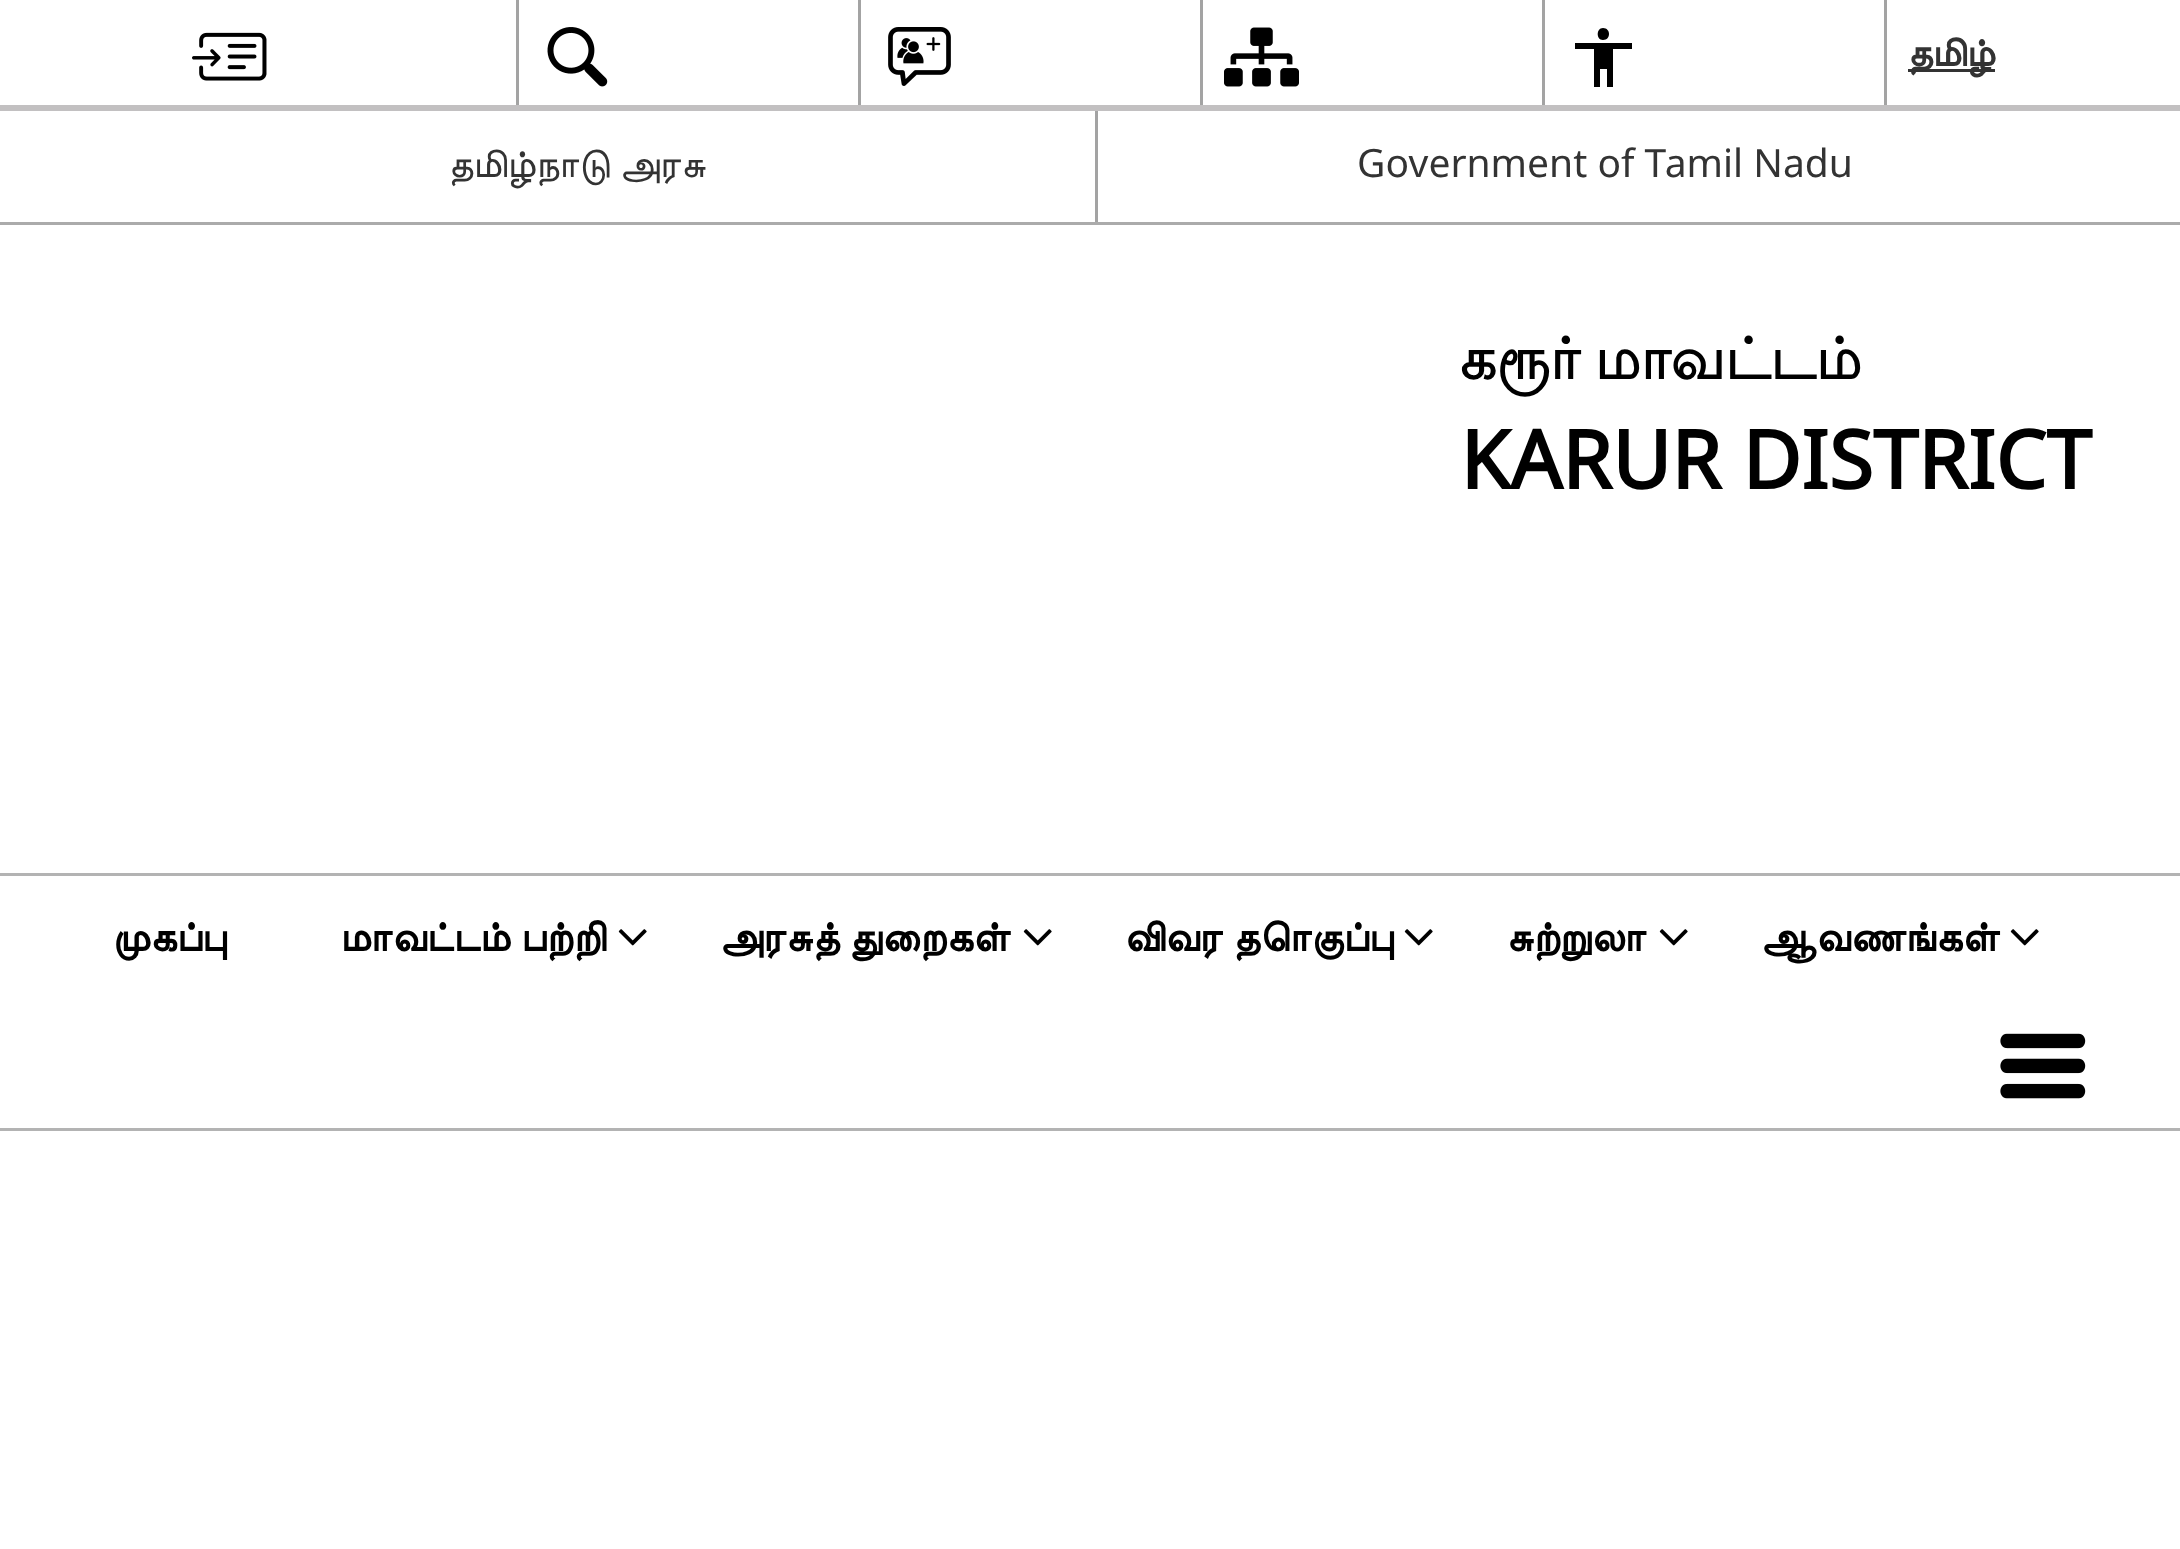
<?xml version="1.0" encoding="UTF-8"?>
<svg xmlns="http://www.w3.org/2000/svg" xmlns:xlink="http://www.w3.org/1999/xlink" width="2180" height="1549">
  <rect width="100%" height="100%" fill="#ffffff" />
  <rect y="222" width="2180" height="3" fill="#ababab" />
  <image x="192" y="32" width="75" height="49" xlink:href="image1.png" />
  <rect x="516" width="3" height="111" fill="#a3a3a3" />
  <image x="547" y="27" width="61" height="60" xlink:href="image2.png" />
  <rect x="858" width="3" height="111" fill="#a3a3a3" />
  <image x="888" y="27" width="63" height="59" xlink:href="image3.png" />
  <rect x="1200" width="3" height="111" fill="#a3a3a3" />
  <image x="1224" y="27" width="75" height="60" xlink:href="image4.png" />
  <rect x="1542" width="3" height="111" fill="#a3a3a3" />
  <path d="M 1632 49 h -19 v 38 h -6 v -18 h -7 v 18 h -6 v -38 h -19 v -6 h 57 z m -29 -21 c 8 0 8 12 0 12 c -7 0 -7 -12 0 -12 z" fill="#000000" />
  <rect x="1884" width="3" height="111" fill="#a3a3a3" />
  <rect x="1908" y="69" width="87" height="3" fill="#333333" />
  <rect x="1095" y="111" width="3" height="111" fill="#a3a3a3" />
  <rect y="105" width="2180" height="6" fill="#c2c0c1" />
  <rect y="873" width="2180" height="3" fill="#b3b3b3" />
  <rect y="1128" width="2180" height="3" fill="#b3b3b3" />
  <image x="618" y="929" width="29" height="17" xlink:href="image5.png" />
  <image x="1023" y="929" width="29" height="17" xlink:href="image5.png" />
  <image x="1404" y="929" width="29" height="17" xlink:href="image5.png" />
  <image x="1659" y="929" width="29" height="17" xlink:href="image5.png" />
  <image x="2010" y="929" width="29" height="17" xlink:href="image5.png" />
  <image x="2000" y="1033" width="86" height="66" xlink:href="image6.png" />
  <text x="1907" y="66" style="font-family: FreeSans; font-size: 39px; font-weight: bold; fill: #333333">தமிழ்</text>
  <text x="448" y="177" style="font-family: FreeSans; font-size: 39px; fill: #333333">தமிழ்நாடு அரசு</text>
  <text x="1357" y="177" style="font-family: Noto Sans; font-size: 39px; fill: #333333">Government of Tamil Nadu</text>
  <text x="1460" y="379" word-spacing="-2" style="font-family: Lohit Tamil; font-size: 57px; font-weight: bold; fill: #000000">கரூர் மாவட்டம்</text>
  <text x="1460" y="489" style="font-family: Noto Sans; font-size: 80.75px; font-weight: bold; fill: #000000">KARUR DISTRICT</text>
  <text x="112" y="951" style="font-family: FreeSans; font-size: 42px; font-weight: bold; fill: #000000">முகப்பு</text>
  <text x="340" y="951" style="font-family: FreeSans; font-size: 42px; font-weight: bold; fill: #000000">மாவட்டம் பற்றி</text>
  <text x="719" y="951" style="font-family: FreeSans; font-size: 42px; font-weight: bold; fill: #000000">அரசுத் துறைகள்</text>
  <text x="1124" y="951" style="font-family: FreeSans; font-size: 42px; font-weight: bold; fill: #000000">விவர தொகுப்பு</text>
  <text x="1506" y="951" style="font-family: FreeSans; font-size: 42px; font-weight: bold; fill: #000000">சுற்றுலா</text>
  <text x="1760" y="951" style="font-family: FreeSans; font-size: 42px; font-weight: bold; fill: #000000">ஆவணங்கள்</text>
</svg>
